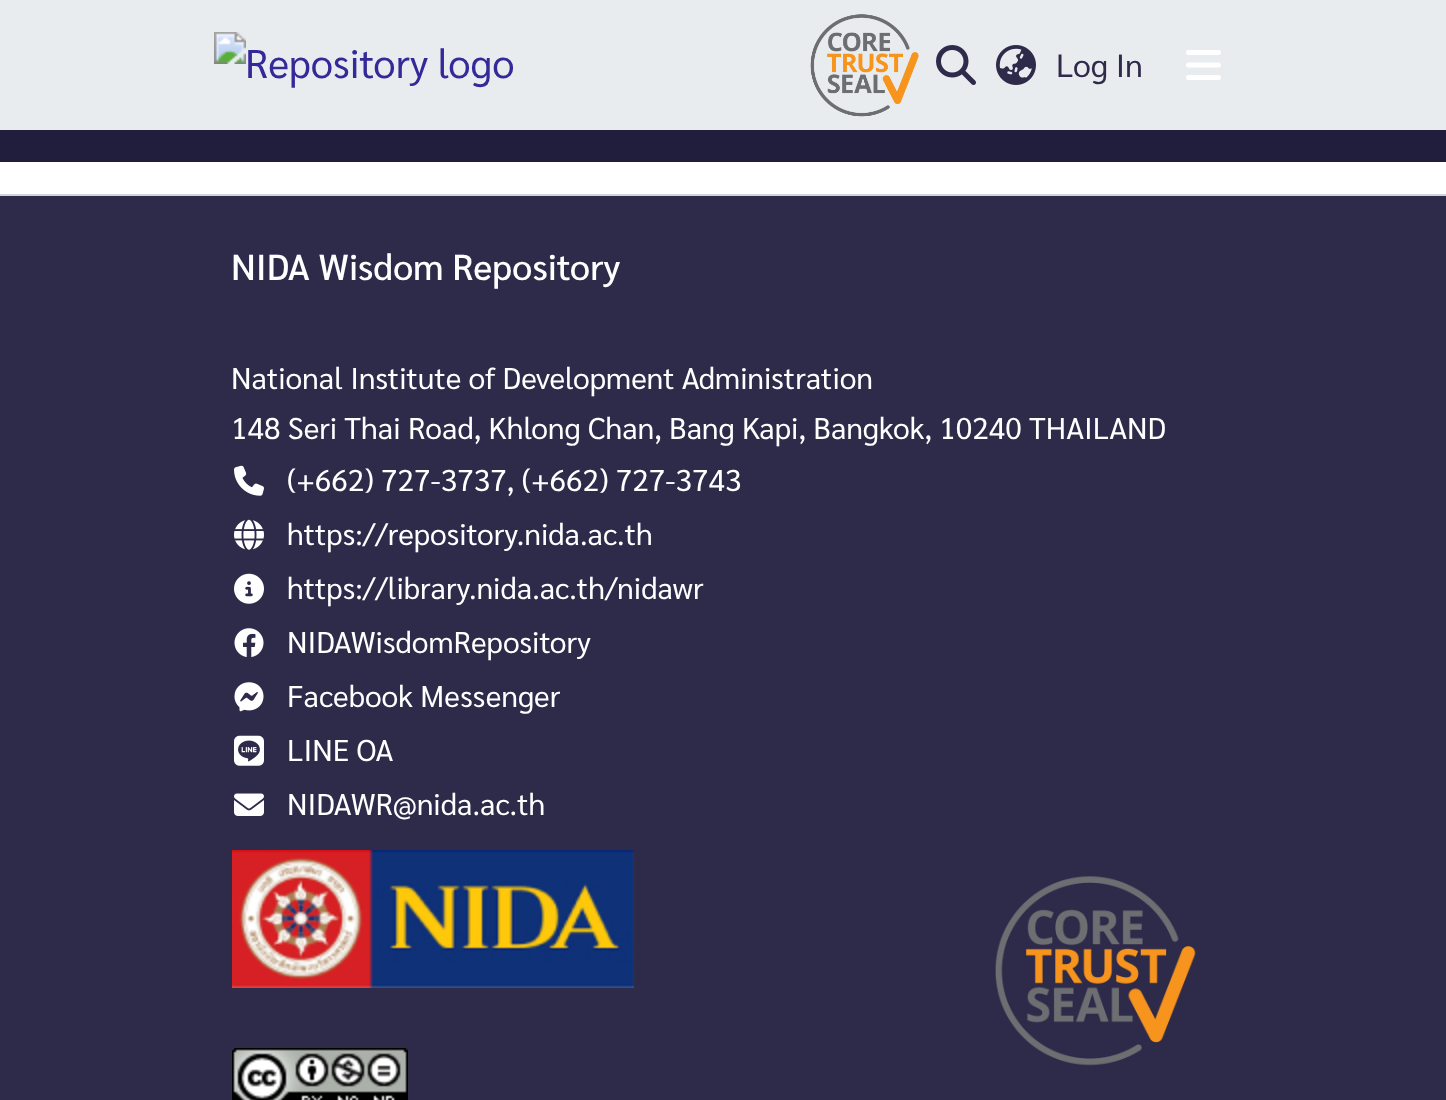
<?xml version="1.0" encoding="UTF-8"?>
<svg xmlns="http://www.w3.org/2000/svg" xmlns:xlink="http://www.w3.org/1999/xlink" width="1446" height="1100">
  <rect width="100%" height="100%" fill="#ffffff" />
  <rect width="1446" height="130" fill="#e9ecef" />
  <image x="214" y="32" width="300" height="56" xlink:href="image1.png" />
  <image x="810" y="14" width="109" height="103" xlink:href="image2.png" />
  <image x="936" y="45" width="40" height="40" xlink:href="image3.png" />
  <image x="996" y="45" width="40" height="40" xlink:href="image4.png" />
  <image x="1186" y="50" width="35" height="30" xlink:href="image5.png" />
  <rect y="130" width="1446" height="32" fill="#211e3d" />
  <rect y="196" width="1446" height="904" fill="#2d2a4a" />
  <rect y="194" width="1446" height="2" fill="#ced4da" />
  <image x="234" y="465" width="30" height="31" xlink:href="image6.png" />
  <image x="234" y="519" width="30" height="31" xlink:href="image7.png" />
  <image x="234" y="573" width="30" height="31" xlink:href="image8.png" />
  <image x="234" y="628" width="30" height="29" xlink:href="image9.png" />
  <image x="234" y="682" width="30" height="30" xlink:href="image10.png" />
  <image x="234" y="735" width="30" height="31" xlink:href="image11.png" />
  <image x="234" y="793" width="30" height="23" xlink:href="image12.png" />
  <image x="232" y="850" width="402" height="138" xlink:href="image13.png" />
  <image x="995" y="876" width="201" height="190" xlink:href="image14.png" />
  <image x="232" y="1048" width="176" height="52" xlink:href="image15.png" />
  <text x="1056" y="77" style="font-family: Sarabun; font-size: 32px; fill: #2d2a4a">Log In</text>
  <text x="231" y="280" style="font-family: Sarabun; font-size: 36px; font-weight: 500; fill: #ffffff">NIDA Wisdom Repository</text>
  <text x="231" y="389" style="font-family: Sarabun; font-size: 30px; fill: #ffffff">National Institute of Development Administration</text>
  <text x="231" y="439" style="font-family: Sarabun; font-size: 30px; fill: #ffffff">148 Seri Thai Road, Khlong Chan, Bang Kapi, Bangkok, 10240 THAILAND</text>
  <text x="287" y="491" style="font-family: Sarabun; font-size: 30px; fill: #ffffff">(+662) 727-3737, (+662) 727-3743</text>
  <text x="287" y="545" style="font-family: Sarabun; font-size: 30px; fill: #ffffff">https://repository.nida.ac.th</text>
  <text x="287" y="599" style="font-family: Sarabun; font-size: 30px; fill: #ffffff">https://library.nida.ac.th/nidawr</text>
  <text x="287" y="653" style="font-family: Sarabun; font-size: 30px; fill: #ffffff">NIDAWisdomRepository</text>
  <text x="287" y="707" style="font-family: Sarabun; font-size: 30px; fill: #ffffff">Facebook Messenger</text>
  <text x="287" y="761" style="font-family: Sarabun; font-size: 30px; fill: #ffffff">LINE OA</text>
  <text x="287" y="815" style="font-family: Sarabun; font-size: 30px; fill: #ffffff">NIDAWR@nida.ac.th</text>
</svg>
